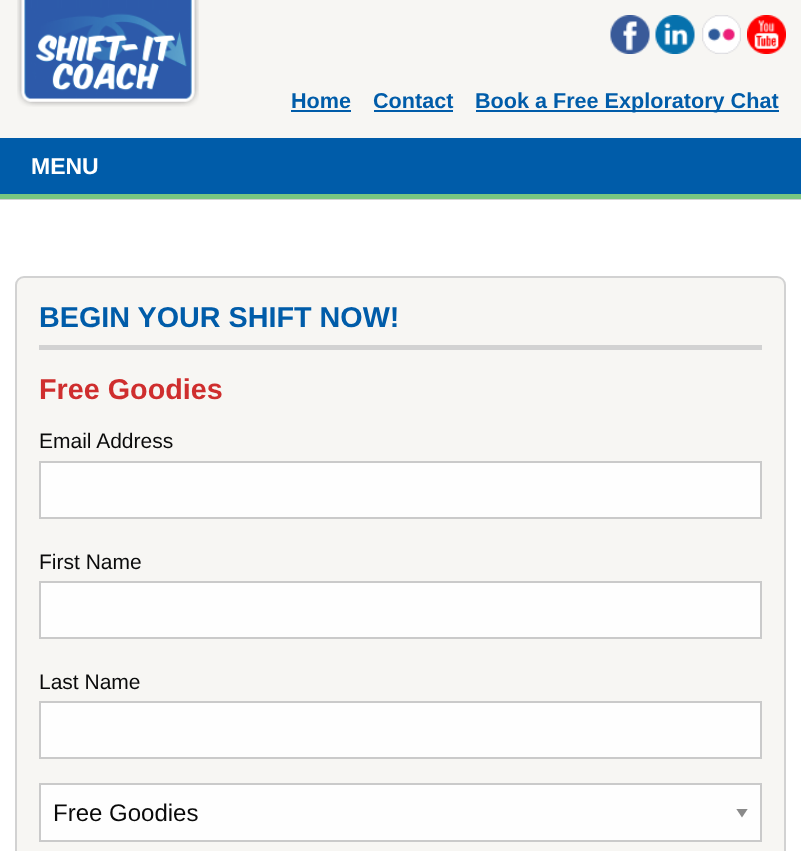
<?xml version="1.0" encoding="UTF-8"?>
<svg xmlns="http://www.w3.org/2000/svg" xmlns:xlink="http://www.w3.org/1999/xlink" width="801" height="851">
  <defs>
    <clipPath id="clip1"><rect x="735" y="809" width="14" height="9" /></clipPath>
  </defs>
  <rect width="100%" height="100%" fill="#ffffff" />
  <rect width="801" height="138" fill="#f7f6f3" />
  <rect y="199" width="801" height="1" fill="#d2d2d2" />
  <rect y="194" width="801" height="5" fill="#79c680" />
  <image x="17" y="0" width="182" height="107" xlink:href="image1.png" />
  <image x="610" y="15" width="40" height="39" xlink:href="image2.png" />
  <image x="655" y="15" width="40" height="39" xlink:href="image3.png" />
  <image x="702" y="15" width="39" height="39" xlink:href="image4.png" />
  <image x="747" y="15" width="39" height="39" xlink:href="image5.png" />
  <rect x="291" y="110" width="60" height="2" fill="#005ca9" />
  <rect x="374" y="110" width="79" height="2" fill="#005ca9" />
  <rect x="476" y="110" width="303" height="2" fill="#005ca9" />
  <rect y="138" width="801" height="56" fill="#005ca9" />
  <rect x="16" y="277" width="769" height="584" rx="8" fill="#f7f6f3" stroke="#d2d2d2" stroke-width="2" />
  <rect x="39" y="345" width="723" height="5" fill="#d2d2d2" />
  <rect x="40" y="462" width="721" height="56" fill="#fefefe" stroke="#cacaca" stroke-width="2" />
  <rect x="40" y="582" width="721" height="56" fill="#fefefe" stroke="#cacaca" stroke-width="2" />
  <rect x="40" y="702" width="721" height="56" fill="#fefefe" stroke="#cacaca" stroke-width="2" />
  <rect x="41" y="785" width="719" height="55" fill="#fefefe" />
  <g clip-path="url(#clip1)">
    <path d="M 736 808.5 h 12 l -6 9 z" fill="#8a8a8a" />
  </g>
  <rect x="40" y="784" width="721" height="57" fill="none" stroke="#cacaca" stroke-width="2" />
  <text x="291" y="108" style="font-family: Liberation Sans; font-size: 21.6px; font-weight: bold; fill: #005ca9">Home</text>
  <text x="373" y="108" style="font-family: Liberation Sans; font-size: 21.6px; font-weight: bold; fill: #005ca9">Contact</text>
  <text x="475" y="108" style="font-family: Liberation Sans; font-size: 21.6px; font-weight: bold; fill: #005ca9">Book a Free Exploratory Chat</text>
  <text x="31" y="174" style="font-family: Liberation Sans; font-size: 23px; font-weight: bold; fill: #ffffff">MENU</text>
  <text x="39" y="327" style="font-family: Liberation Sans; font-size: 28.75px; font-weight: bold; fill: #005ca9">BEGIN YOUR SHIFT NOW!</text>
  <text x="39" y="399" style="font-family: Liberation Sans; font-size: 28.75px; font-weight: bold; fill: #cf2e2e">Free Goodies</text>
  <text x="39" y="448" style="font-family: Liberation Sans; font-size: 21px; fill: #0a0a0a">Email Address</text>
  <text x="39" y="569" style="font-family: Liberation Sans; font-size: 21px; fill: #0a0a0a">First Name</text>
  <text x="39" y="689" style="font-family: Liberation Sans; font-size: 21px; fill: #0a0a0a">Last Name</text>
  <text x="53" y="821" style="font-family: Liberation Sans; font-size: 24px; fill: #0a0a0a">Free Goodies</text>
</svg>
